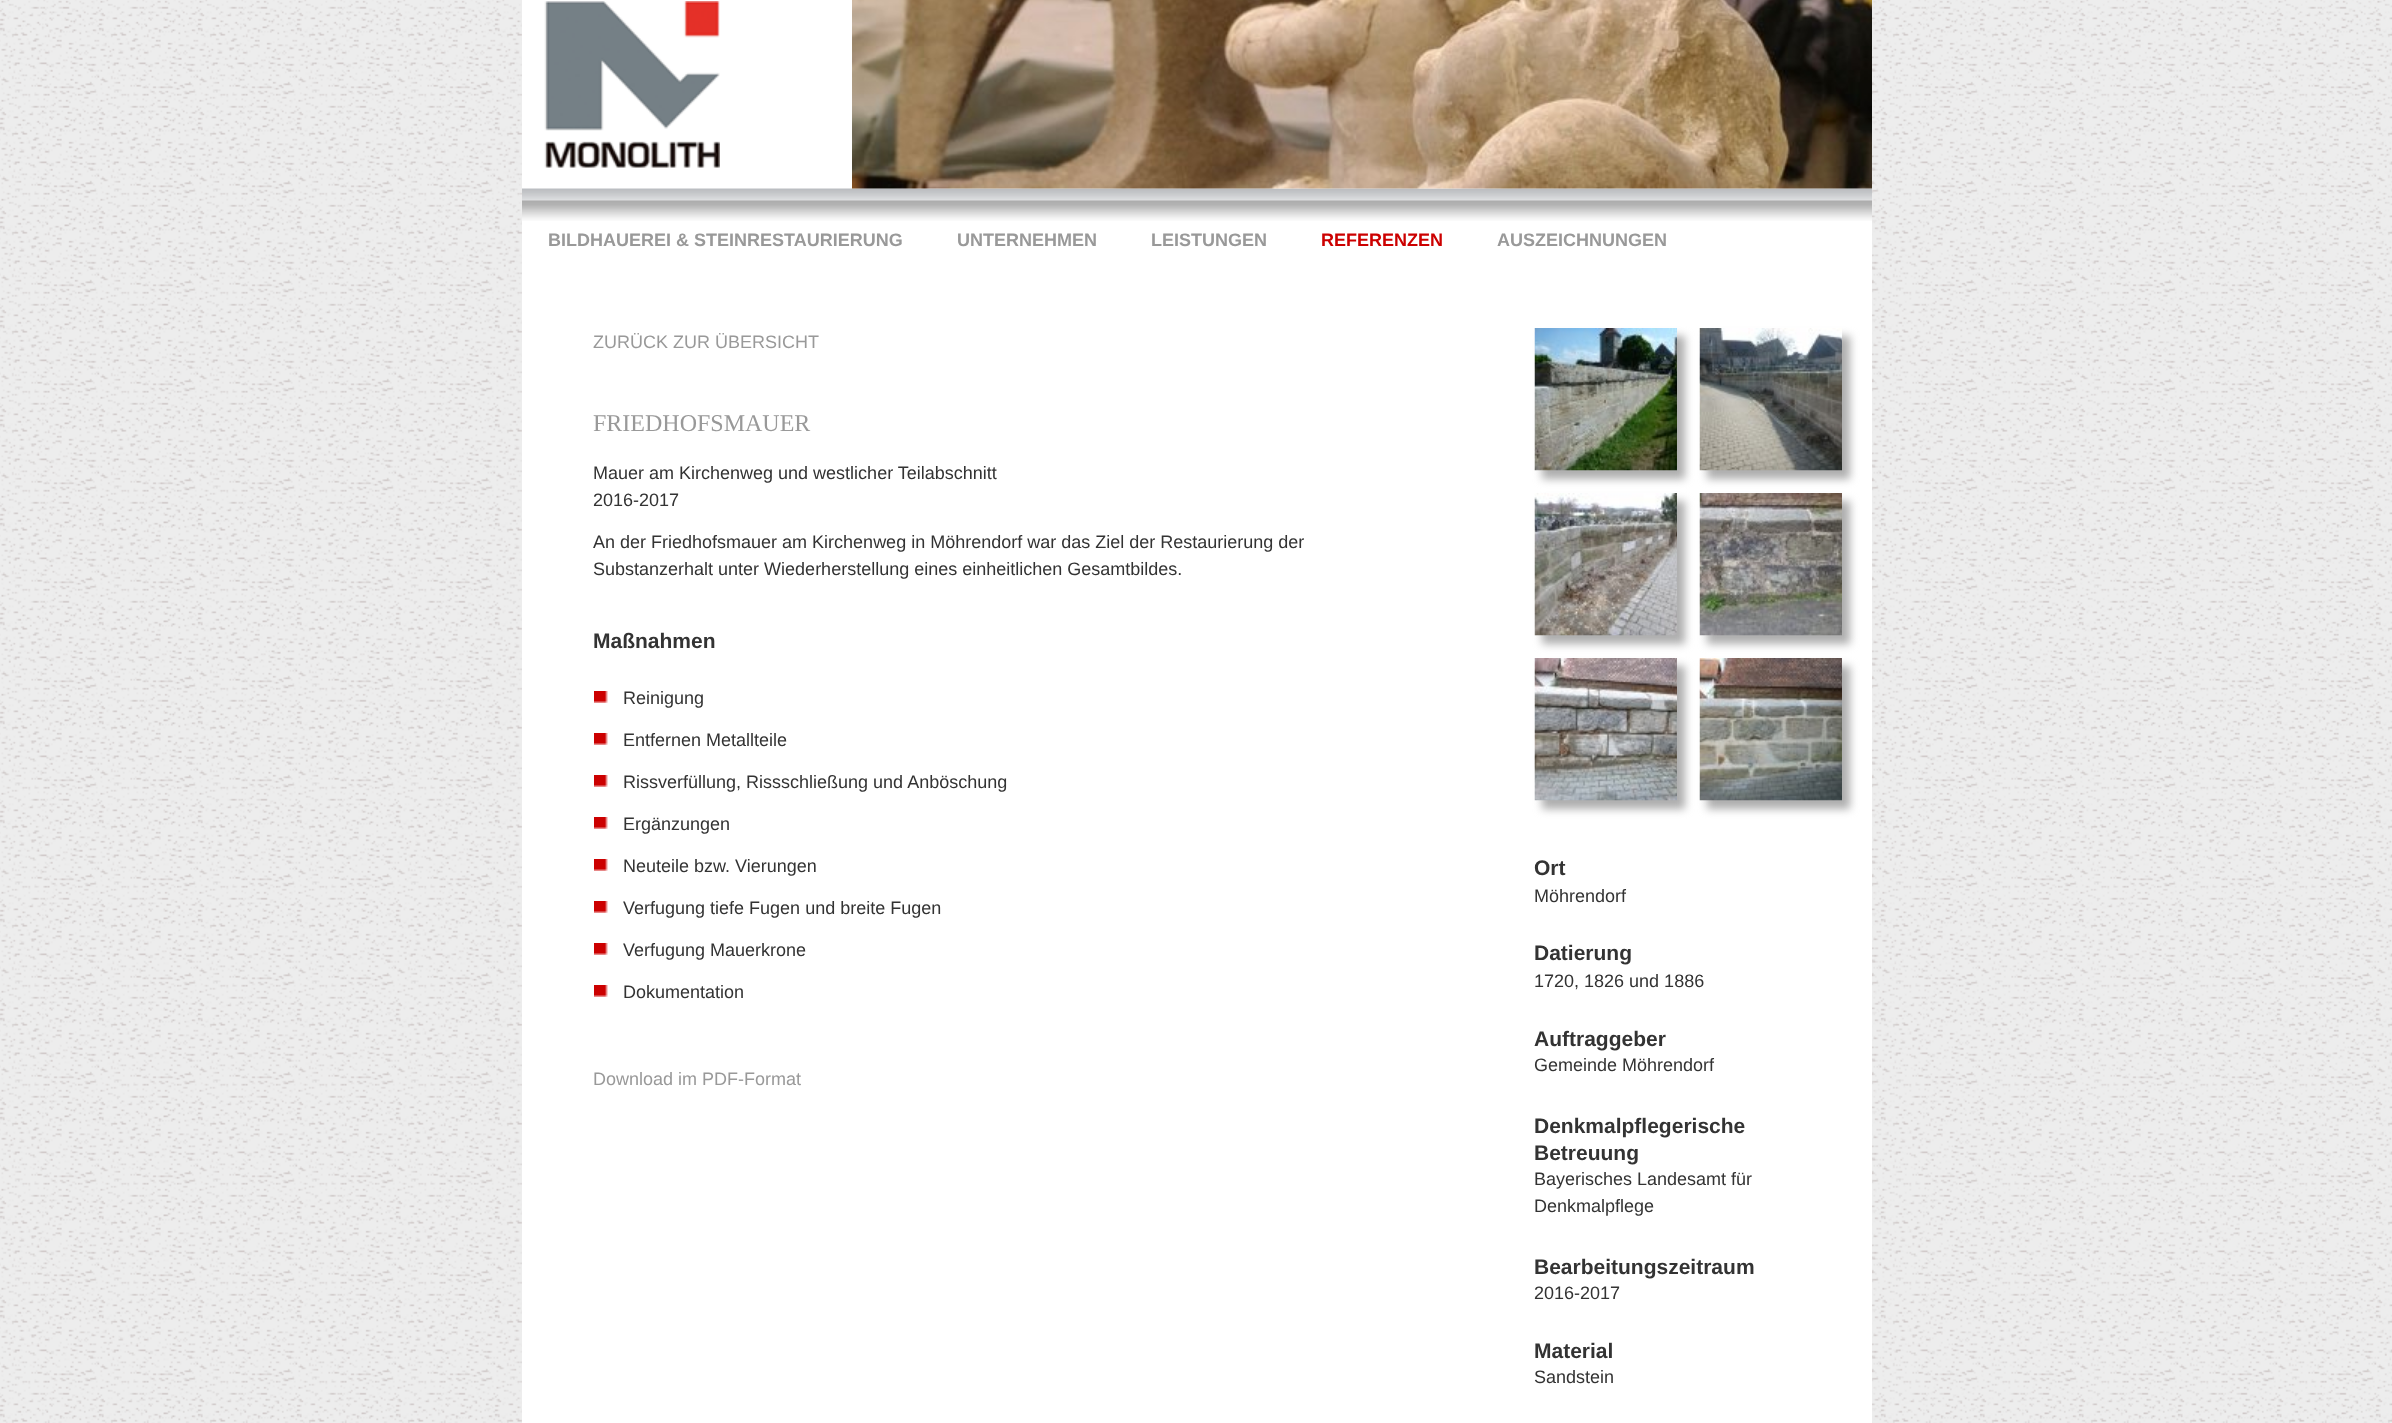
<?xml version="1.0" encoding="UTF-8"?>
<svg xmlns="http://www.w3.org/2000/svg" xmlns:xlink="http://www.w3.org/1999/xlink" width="2392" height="1423">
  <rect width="100%" height="100%" fill="#ffffff" />
  <image x="0" y="0" width="2392" height="1423" xlink:href="image1.png" />
  <rect x="522" width="1350" height="1423" fill="#ffffff" />
  <image x="544" y="1" width="176" height="167" xlink:href="image2.png" />
  <image x="522" y="188" width="1350" height="33" xlink:href="image4.png" />
  <image x="852" y="0" width="1020" height="189" xlink:href="image3.png" />
  <image x="594" y="691" width="14" height="12" xlink:href="image5.png" />
  <image x="594" y="733" width="14" height="12" xlink:href="image5.png" />
  <image x="594" y="775" width="14" height="12" xlink:href="image5.png" />
  <image x="594" y="817" width="14" height="12" xlink:href="image5.png" />
  <image x="594" y="859" width="14" height="12" xlink:href="image5.png" />
  <image x="594" y="901" width="14" height="12" xlink:href="image5.png" />
  <image x="594" y="943" width="14" height="12" xlink:href="image5.png" />
  <image x="594" y="985" width="14" height="12" xlink:href="image5.png" />
  <rect x="1542" y="336" width="143" height="143" fill="#aeaeae" filter="blur(4px)" />
  <image x="1534" y="328" width="143" height="143" xlink:href="image6.png" />
  <rect x="1707" y="336" width="143" height="143" fill="#aeaeae" filter="blur(4px)" />
  <image x="1699" y="328" width="143" height="143" xlink:href="image7.png" />
  <rect x="1542" y="501" width="143" height="143" fill="#aeaeae" filter="blur(4px)" />
  <image x="1534" y="493" width="143" height="143" xlink:href="image8.png" />
  <rect x="1707" y="501" width="143" height="143" fill="#aeaeae" filter="blur(4px)" />
  <image x="1699" y="493" width="143" height="143" xlink:href="image9.png" />
  <rect x="1542" y="666" width="143" height="143" fill="#aeaeae" filter="blur(4px)" />
  <image x="1534" y="658" width="143" height="143" xlink:href="image10.png" />
  <rect x="1707" y="666" width="143" height="143" fill="#aeaeae" filter="blur(4px)" />
  <image x="1699" y="658" width="143" height="143" xlink:href="image11.png" />
  <text x="548" y="246" style="font-family: Liberation Sans; font-size: 18px; font-weight: bold; fill: #999999">BILDHAUEREI &amp; STEINRESTAURIERUNG</text>
  <text x="957" y="246" style="font-family: Liberation Sans; font-size: 18px; font-weight: bold; fill: #999999">UNTERNEHMEN</text>
  <text x="1151" y="246" style="font-family: Liberation Sans; font-size: 18px; font-weight: bold; fill: #999999">LEISTUNGEN</text>
  <text x="1321" y="246" style="font-family: Liberation Sans; font-size: 18px; font-weight: bold; fill: #cc0000">REFERENZEN</text>
  <text x="1497" y="246" style="font-family: Liberation Sans; font-size: 18px; font-weight: bold; fill: #999999">AUSZEICHNUNGEN</text>
  <text x="593" y="348" style="font-family: Liberation Sans; font-size: 18px; fill: #999999">ZURÜCK ZUR ÜBERSICHT</text>
  <text x="593" y="431" style="font-family: Liberation Serif; font-size: 24px; fill: #999999">FRIEDHOFSMAUER</text>
  <text x="593" y="479" style="font-family: Liberation Sans; font-size: 18px; fill: #333333">Mauer am Kirchenweg und westlicher Teilabschnitt</text>
  <text x="593" y="506" style="font-family: Liberation Sans; font-size: 18px; fill: #333333">2016-2017</text>
  <text x="593" y="548" style="font-family: Liberation Sans; font-size: 18px; fill: #333333">An der Friedhofsmauer am Kirchenweg in Möhrendorf war das Ziel der Restaurierung der</text>
  <text x="593" y="575" style="font-family: Liberation Sans; font-size: 18px; fill: #333333">Substanzerhalt unter Wiederherstellung eines einheitlichen Gesamtbildes.</text>
  <text x="593" y="648" style="font-family: Liberation Sans; font-size: 21px; font-weight: bold; fill: #333333">Maßnahmen</text>
  <text x="623" y="704" style="font-family: Liberation Sans; font-size: 18px; fill: #333333">Reinigung</text>
  <text x="623" y="746" style="font-family: Liberation Sans; font-size: 18px; fill: #333333">Entfernen Metallteile</text>
  <text x="623" y="788" style="font-family: Liberation Sans; font-size: 18px; fill: #333333">Rissverfüllung, Rissschließung und Anböschung</text>
  <text x="623" y="830" style="font-family: Liberation Sans; font-size: 18px; fill: #333333">Ergänzungen</text>
  <text x="623" y="872" style="font-family: Liberation Sans; font-size: 18px; fill: #333333">Neuteile bzw. Vierungen</text>
  <text x="623" y="914" style="font-family: Liberation Sans; font-size: 18px; fill: #333333">Verfugung tiefe Fugen und breite Fugen</text>
  <text x="623" y="956" style="font-family: Liberation Sans; font-size: 18px; fill: #333333">Verfugung Mauerkrone</text>
  <text x="623" y="998" style="font-family: Liberation Sans; font-size: 18px; fill: #333333">Dokumentation</text>
  <text x="593" y="1085" style="font-family: Liberation Sans; font-size: 18px; fill: #999999">Download im PDF-Format</text>
  <text x="1534" y="875" style="font-family: Liberation Sans; font-size: 21px; font-weight: bold; fill: #333333">Ort</text>
  <text x="1534" y="902" style="font-family: Liberation Sans; font-size: 18px; fill: #333333">Möhrendorf</text>
  <text x="1534" y="960" style="font-family: Liberation Sans; font-size: 21px; font-weight: bold; fill: #333333">Datierung</text>
  <text x="1534" y="987" style="font-family: Liberation Sans; font-size: 18px; fill: #333333">1720, 1826 und 1886</text>
  <text x="1534" y="1046" style="font-family: Liberation Sans; font-size: 21px; font-weight: bold; fill: #333333">Auftraggeber</text>
  <text x="1534" y="1071" style="font-family: Liberation Sans; font-size: 18px; fill: #333333">Gemeinde Möhrendorf</text>
  <text x="1534" y="1133" style="font-family: Liberation Sans; font-size: 21px; font-weight: bold; fill: #333333">Denkmalpflegerische</text>
  <text x="1534" y="1160" style="font-family: Liberation Sans; font-size: 21px; font-weight: bold; fill: #333333">Betreuung</text>
  <text x="1534" y="1185" style="font-family: Liberation Sans; font-size: 18px; fill: #333333">Bayerisches Landesamt für</text>
  <text x="1534" y="1212" style="font-family: Liberation Sans; font-size: 18px; fill: #333333">Denkmalpflege</text>
  <text x="1534" y="1274" style="font-family: Liberation Sans; font-size: 21px; font-weight: bold; fill: #333333">Bearbeitungszeitraum</text>
  <text x="1534" y="1299" style="font-family: Liberation Sans; font-size: 18px; fill: #333333">2016-2017</text>
  <text x="1534" y="1358" style="font-family: Liberation Sans; font-size: 21px; font-weight: bold; fill: #333333">Material</text>
  <text x="1534" y="1383" style="font-family: Liberation Sans; font-size: 18px; fill: #333333">Sandstein</text>
</svg>
